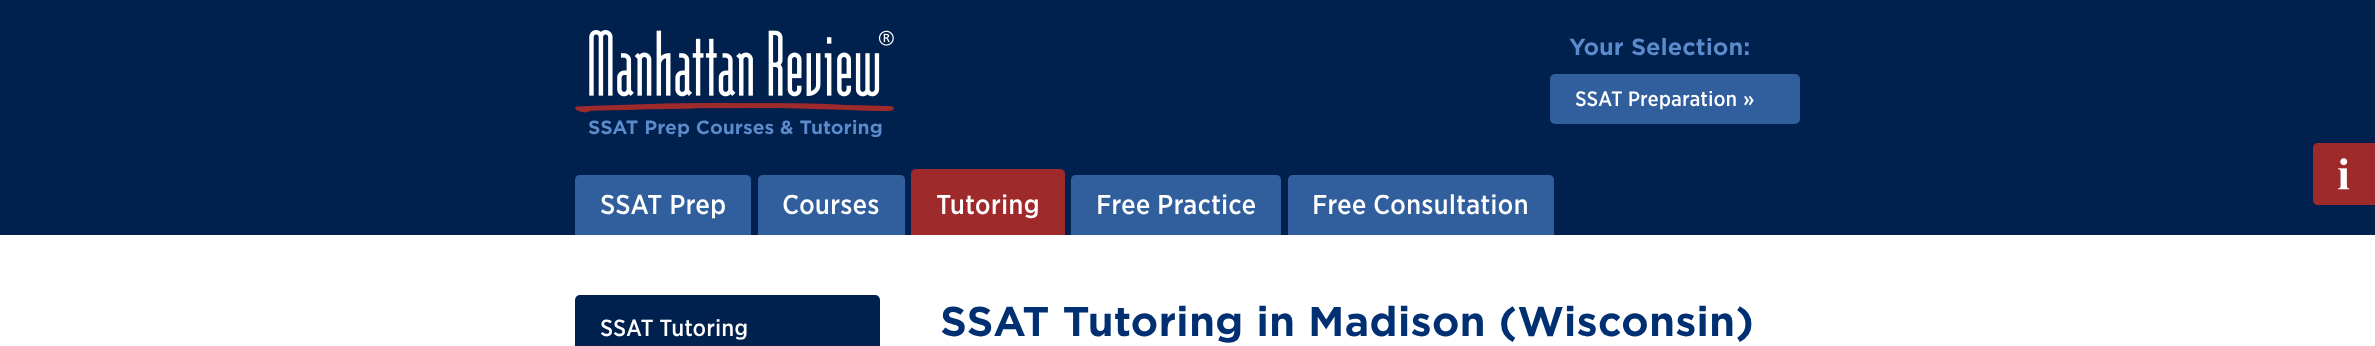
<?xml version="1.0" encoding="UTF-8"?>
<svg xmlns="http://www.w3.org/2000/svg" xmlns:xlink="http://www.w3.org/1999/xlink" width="2375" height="346">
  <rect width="100%" height="100%" fill="#00204e" />
  <rect x="1550" y="74" width="250" height="50" rx="5" fill="#315e9c" />
  <image x="575" y="30" width="319" height="83" xlink:href="image1.png" />
  <path d="M 580 175 h 166 c 3 0 5 2 5 5 v 55 h -176 v -55 c 0 -3 2 -5 5 -5 z" fill="#315e9c" />
  <path d="M 763 175 h 137 c 3 0 5 2 5 5 v 55 h -147 v -55 c 0 -3 2 -5 5 -5 z" fill="#315e9c" />
  <path d="M 916 169 h 144 c 3 0 5 2 5 5 v 61 h -154 v -61 c 0 -3 2 -5 5 -5 z" fill="#9e2a2b" />
  <path d="M 1076 175 h 200 c 3 0 5 2 5 5 v 55 h -210 v -55 c 0 -3 2 -5 5 -5 z" fill="#315e9c" />
  <path d="M 1293 175 h 256 c 3 0 5 2 5 5 v 55 h -266 v -55 c 0 -3 2 -5 5 -5 z" fill="#315e9c" />
  <path d="M 2318 143 h 57 v 62 h -57 c -3 0 -5 -2 -5 -5 v -52 c 0 -3 2 -5 5 -5 z" fill="#9e2a2b" />
  <image x="2338" y="158" width="12" height="32" xlink:href="image2.png" />
  <rect y="235" width="2375" height="111" fill="#ffffff" />
  <rect x="575" y="295" width="305" height="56" rx="5" fill="#00204e" />
  <text x="1569" y="55" style="font-family: 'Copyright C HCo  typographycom'; font-size: 22.5px; fill: #5c8bcb">Your Selection:</text>
  <text x="1575" y="106" style="font-family: 'Copyright C HCo  typographycom'; font-size: 20px; font-weight: 300; fill: #ffffff">SSAT Preparation</text>
  <text x="1743" y="106" style="font-family: 'Copyright C HCo  typographycom'; font-size: 20px; font-weight: 300; fill: #ffffff">»</text>
  <text x="588" y="134" style="font-family: 'Copyright C HCo  typographycom'; font-size: 18.4px; fill: #5c8bcb">SSAT Prep Courses &amp; Tutoring</text>
  <text x="600" y="214" style="font-family: 'Copyright C HCo  typographycom'; font-size: 26.25px; font-weight: 300; fill: #ffffff">SSAT Prep</text>
  <text x="782" y="214" style="font-family: 'Copyright C HCo  typographycom'; font-size: 26.25px; font-weight: 300; fill: #ffffff">Courses</text>
  <text x="936" y="214" style="font-family: 'Copyright C HCo  typographycom'; font-size: 26.25px; font-weight: 300; fill: #ffffff">Tutoring</text>
  <text x="1096" y="214" style="font-family: 'Copyright C HCo  typographycom'; font-size: 26.25px; font-weight: 300; fill: #ffffff">Free Practice</text>
  <text x="1312" y="214" style="font-family: 'Copyright C HCo  typographycom'; font-size: 26.25px; font-weight: 300; fill: #ffffff">Free Consultation</text>
  <text x="600" y="336" style="font-family: 'Copyright C HCo  typographycom'; font-size: 22.5px; font-weight: 300; fill: #ffffff">SSAT Tutoring</text>
  <text x="940" y="336" style="font-family: 'Copyright C HCo  typographycom'; font-size: 40px; fill: #003072">SSAT Tutoring in Madison (Wisconsin)</text>
</svg>
